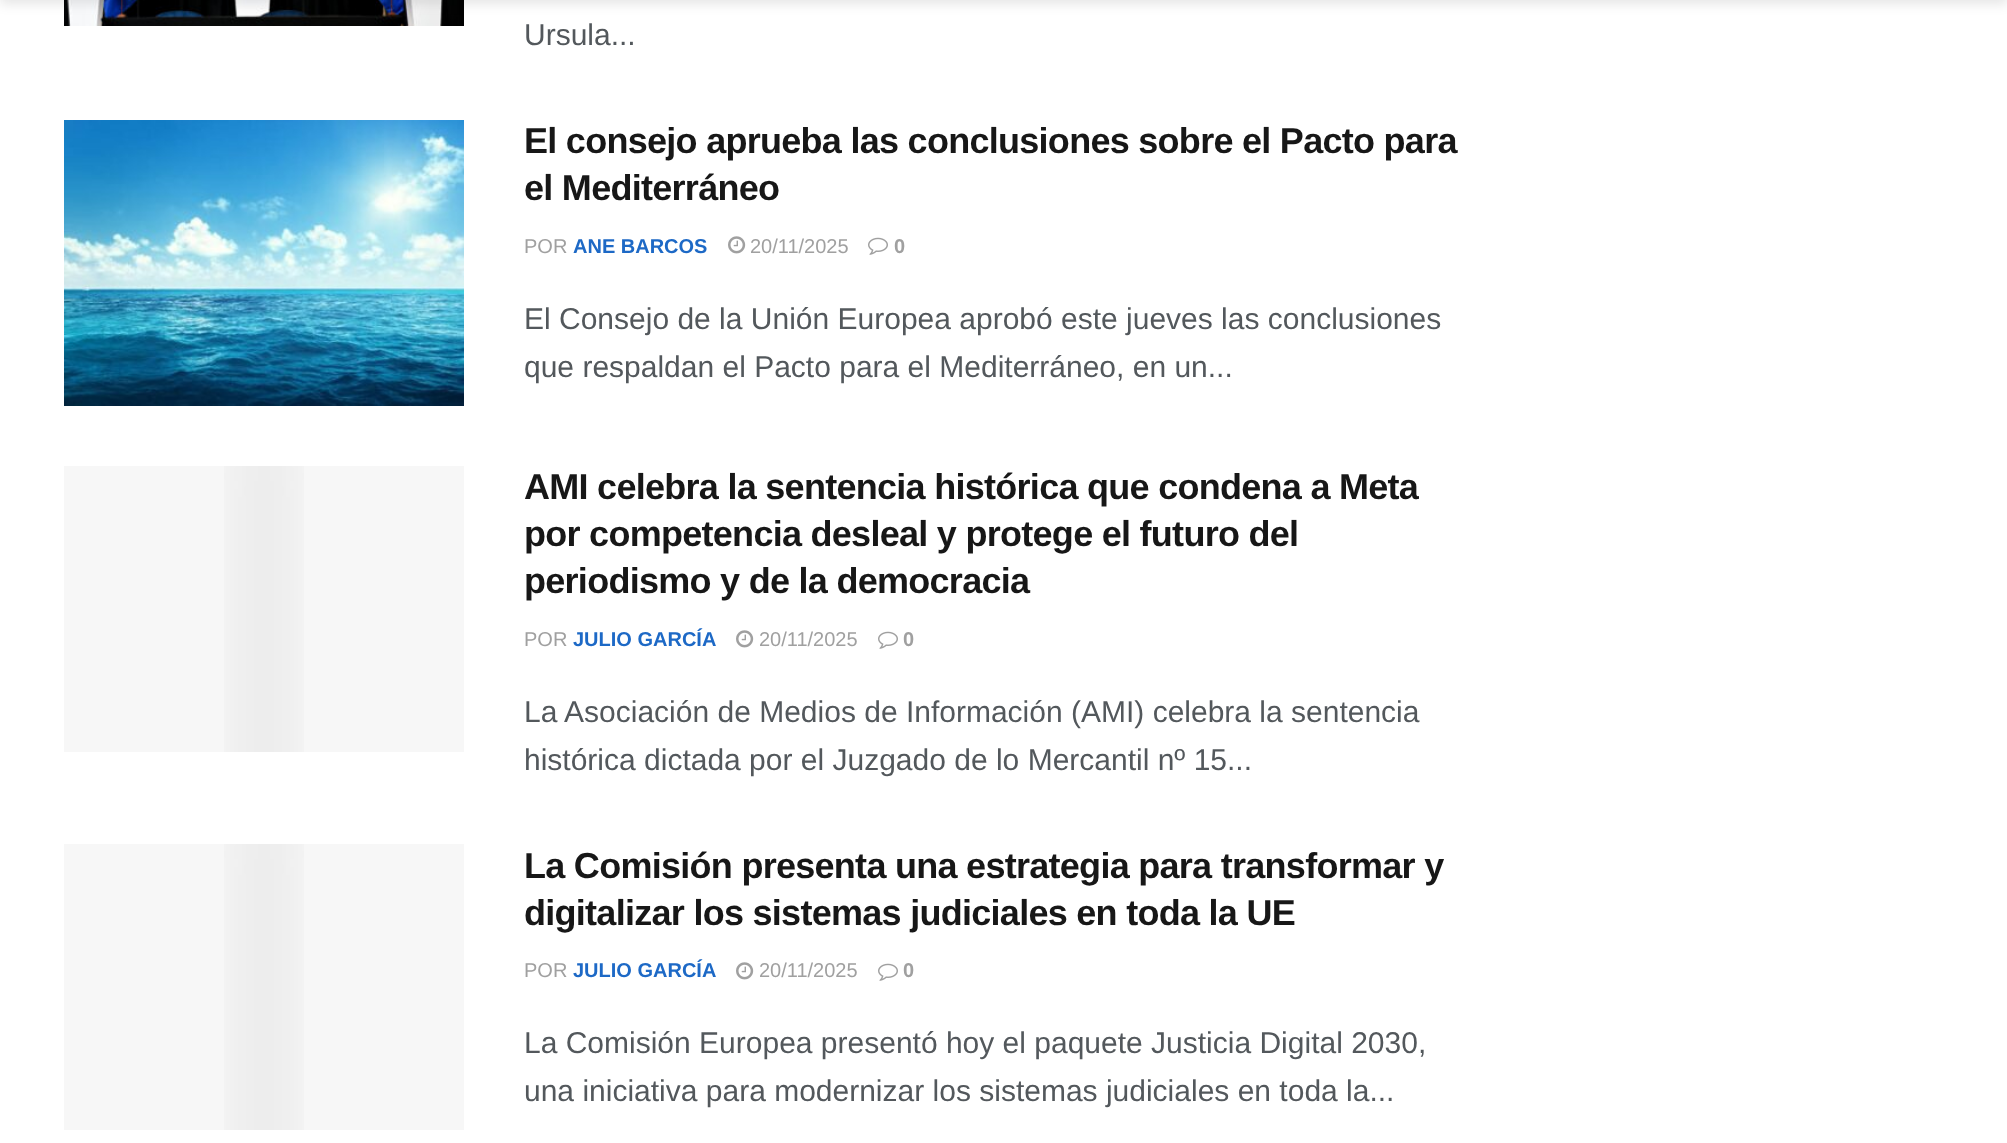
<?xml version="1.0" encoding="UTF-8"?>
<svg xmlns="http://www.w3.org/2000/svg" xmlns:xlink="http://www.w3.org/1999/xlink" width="2007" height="1143">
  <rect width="100%" height="100%" fill="#ffffff" />
  <image x="64" y="0" width="400" height="26" xlink:href="image1.png" />
  <rect y="-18" width="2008" height="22" fill="#000000" fill-opacity="0.1" filter="blur(6px)" />
  <image x="64" y="120" width="400" height="286" xlink:href="image2.png" />
  <image x="728" y="236" width="18" height="18" xlink:href="image3.png" />
  <image x="868" y="237" width="20" height="18" xlink:href="image4.png" />
  <rect x="64" y="466" width="400" height="286" fill="#f7f7f7" />
  <image x="224" y="466" width="80" height="286" xlink:href="image5.png" />
  <image x="736" y="630" width="18" height="18" xlink:href="image3.png" />
  <image x="878" y="631" width="20" height="18" xlink:href="image4.png" />
  <rect x="64" y="844" width="400" height="286" fill="#f7f7f7" />
  <image x="224" y="844" width="80" height="286" xlink:href="image5.png" />
  <image x="736" y="962" width="18" height="18" xlink:href="image3.png" />
  <image x="878" y="963" width="20" height="18" xlink:href="image4.png" />
  <text x="524" y="45" style="font-family: Liberation Sans; font-size: 30px; fill: #53585c">Ursula...</text>
  <text x="524" y="153" style="font-family: Liberation Sans; font-size: 36px; font-weight: bold; letter-spacing: -0.72px; fill: #171717">El consejo aprueba las conclusiones sobre el Pacto para</text>
  <text x="524" y="200" style="font-family: Liberation Sans; font-size: 36px; font-weight: bold; letter-spacing: -0.72px; fill: #171717">el Mediterráneo</text>
  <text x="524" y="253" style="font-family: Liberation Sans; font-size: 20px; fill: #a0a0a0">POR</text>
  <text x="573" y="253" style="font-family: Liberation Sans; font-size: 20px; font-weight: bold; fill: #1d69c6">ANE BARCOS</text>
  <text x="750" y="253" style="font-family: Liberation Sans; font-size: 20px; fill: #a0a0a0">20/11/2025</text>
  <text x="894" y="253" style="font-family: Liberation Sans; font-size: 20px; font-weight: bold; fill: #a0a0a0">0</text>
  <text x="524" y="329" style="font-family: Liberation Sans; font-size: 30px; fill: #53585c">El Consejo de la Unión Europea aprobó este jueves las conclusiones</text>
  <text x="524" y="377" style="font-family: Liberation Sans; font-size: 30px; fill: #53585c">que respaldan el Pacto para el Mediterráneo, en un...</text>
  <text x="524" y="499" style="font-family: Liberation Sans; font-size: 36px; font-weight: bold; letter-spacing: -0.72px; fill: #171717">AMI celebra la sentencia histórica que condena a Meta</text>
  <text x="524" y="546" style="font-family: Liberation Sans; font-size: 36px; font-weight: bold; letter-spacing: -0.72px; fill: #171717">por competencia desleal y protege el futuro del</text>
  <text x="524" y="593" style="font-family: Liberation Sans; font-size: 36px; font-weight: bold; letter-spacing: -0.72px; fill: #171717">periodismo y de la democracia</text>
  <text x="524" y="646" style="font-family: Liberation Sans; font-size: 20px; fill: #a0a0a0">POR</text>
  <text x="573" y="646" style="font-family: Liberation Sans; font-size: 20px; font-weight: bold; fill: #1d69c6">JULIO GARCÍA</text>
  <text x="759" y="646" style="font-family: Liberation Sans; font-size: 20px; fill: #a0a0a0">20/11/2025</text>
  <text x="903" y="646" style="font-family: Liberation Sans; font-size: 20px; font-weight: bold; fill: #a0a0a0">0</text>
  <text x="524" y="722" style="font-family: Liberation Sans; font-size: 30px; fill: #53585c">La Asociación de Medios de Información (AMI) celebra la sentencia</text>
  <text x="524" y="770" style="font-family: Liberation Sans; font-size: 30px; fill: #53585c">histórica dictada por el Juzgado de lo Mercantil nº 15...</text>
  <text x="524" y="878" style="font-family: Liberation Sans; font-size: 36px; font-weight: bold; letter-spacing: -0.72px; fill: #171717">La Comisión presenta una estrategia para transformar y</text>
  <text x="524" y="925" style="font-family: Liberation Sans; font-size: 36px; font-weight: bold; letter-spacing: -0.72px; fill: #171717">digitalizar los sistemas judiciales en toda la UE</text>
  <text x="524" y="977" style="font-family: Liberation Sans; font-size: 20px; fill: #a0a0a0">POR</text>
  <text x="573" y="977" style="font-family: Liberation Sans; font-size: 20px; font-weight: bold; fill: #1d69c6">JULIO GARCÍA</text>
  <text x="759" y="977" style="font-family: Liberation Sans; font-size: 20px; fill: #a0a0a0">20/11/2025</text>
  <text x="903" y="977" style="font-family: Liberation Sans; font-size: 20px; font-weight: bold; fill: #a0a0a0">0</text>
  <text x="524" y="1053" style="font-family: Liberation Sans; font-size: 30px; fill: #53585c">La Comisión Europea presentó hoy el paquete Justicia Digital 2030,</text>
  <text x="524" y="1101" style="font-family: Liberation Sans; font-size: 30px; fill: #53585c">una iniciativa para modernizar los sistemas judiciales en toda la...</text>
</svg>
